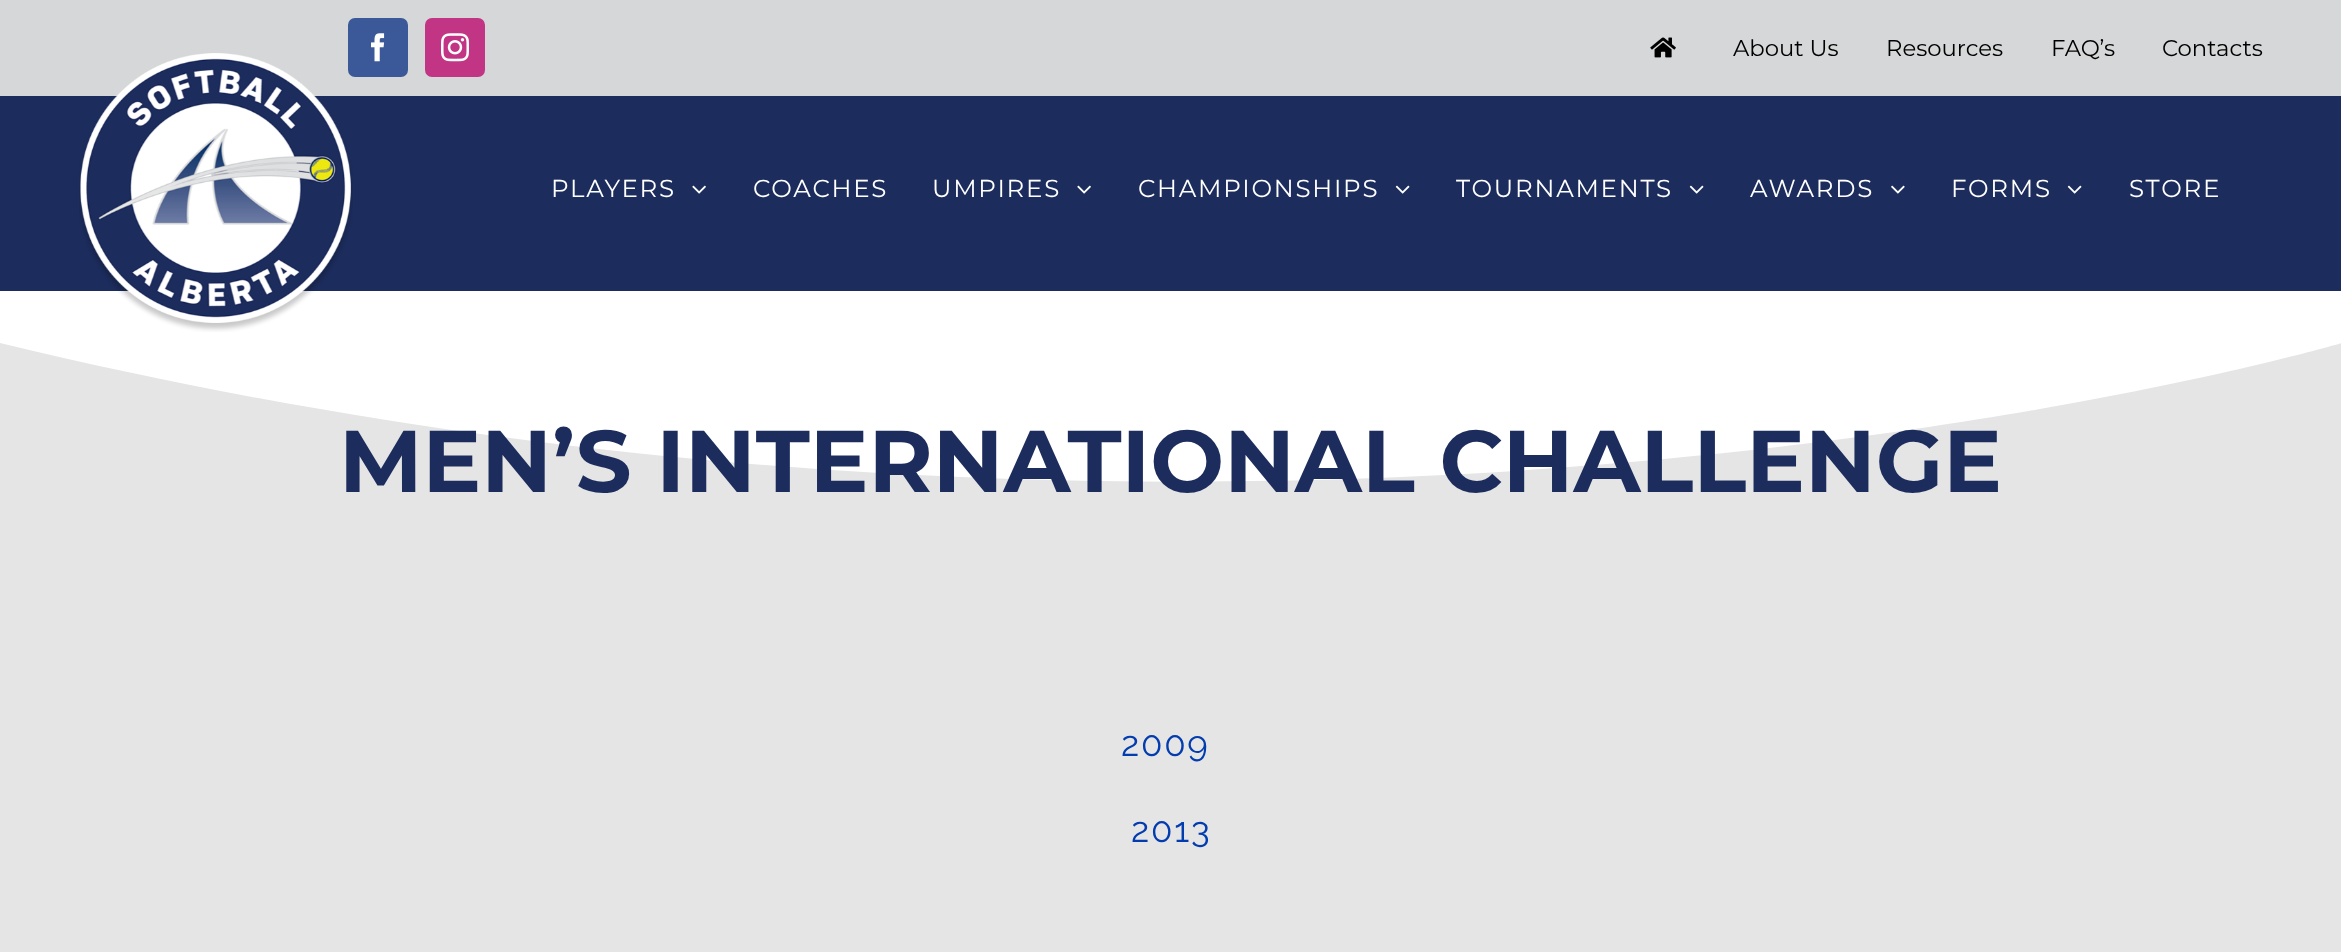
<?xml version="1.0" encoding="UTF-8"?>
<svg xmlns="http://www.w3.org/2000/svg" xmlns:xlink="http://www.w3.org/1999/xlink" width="2341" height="952">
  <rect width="100%" height="100%" fill="#ffffff" />
  <rect width="2341" height="96" fill="#d6d7d8" />
  <rect x="349" y="19" width="58" height="57" rx="6" fill="#3b5998" stroke="#3b5998" stroke-width="2" />
  <image x="371" y="33" width="14" height="29" xlink:href="image1.png" />
  <rect x="426" y="19" width="58" height="57" rx="6" fill="#c13584" stroke="#c13584" stroke-width="2" />
  <image x="441" y="33" width="28" height="29" xlink:href="image2.png" />
  <image x="1650" y="37" width="26" height="21" xlink:href="image3.png" />
  <rect y="96" width="2341" height="195" fill="#1c2c5c" />
  <image x="79" y="53" width="274" height="279" xlink:href="image4.png" />
  <image x="692" y="185" width="14" height="9" xlink:href="image5.png" />
  <image x="1077" y="185" width="14" height="9" xlink:href="image5.png" />
  <image x="1395" y="185" width="15" height="9" xlink:href="image6.png" />
  <image x="1689" y="185" width="15" height="9" xlink:href="image6.png" />
  <image x="1891" y="185" width="14" height="9" xlink:href="image7.png" />
  <image x="2067" y="185" width="15" height="9" xlink:href="image6.png" />
  <rect y="343" width="2341" height="609" fill="#e5e5e5" />
  <path d="M 0 343 c 1288 312 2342 0 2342 0 z" fill="#ffffff" />
  <text x="1733" y="56" style="font-family: Montserrat; font-size: 22.75px; fill: #000000">About Us</text>
  <text x="1886" y="56" style="font-family: Montserrat; font-size: 22.75px; fill: #000000">Resources</text>
  <text x="2051" y="56" style="font-family: Montserrat; font-size: 22.75px; fill: #000000">FAQ’s</text>
  <text x="2162" y="56" style="font-family: Montserrat; font-size: 22.75px; fill: #000000">Contacts</text>
  <text x="551" y="197" style="font-family: Montserrat; font-size: 24.5px; letter-spacing: 1.75px; fill: #ffffff">PLAYERS</text>
  <text x="753" y="197" style="font-family: Montserrat; font-size: 24.5px; letter-spacing: 1.75px; fill: #ffffff">COACHES</text>
  <text x="932" y="197" style="font-family: Montserrat; font-size: 24.5px; letter-spacing: 1.75px; fill: #ffffff">UMPIRES</text>
  <text x="1138" y="197" style="font-family: Montserrat; font-size: 24.5px; letter-spacing: 1.75px; fill: #ffffff">CHAMPIONSHIPS</text>
  <text x="1456" y="197" style="font-family: Montserrat; font-size: 24.5px; letter-spacing: 1.75px; fill: #ffffff">TOURNAMENTS</text>
  <text x="1750" y="197" style="font-family: Montserrat; font-size: 24.5px; letter-spacing: 1.75px; fill: #ffffff">AWARDS</text>
  <text x="1951" y="197" style="font-family: Montserrat; font-size: 24.5px; letter-spacing: 1.75px; fill: #ffffff">FORMS</text>
  <text x="2129" y="197" style="font-family: Montserrat; font-size: 24.5px; letter-spacing: 1.75px; fill: #ffffff">STORE</text>
  <text x="339" y="492" style="font-family: Montserrat; font-size: 87.5px; font-weight: bold; fill: #1c2c5c">MEN’S INTERNATIONAL CHALLENGE</text>
  <text x="1121" y="756" style="font-family: Raleway; font-size: 35px; letter-spacing: 1.75px; fill: #033caf">2009</text>
  <text x="1131" y="842" style="font-family: Raleway; font-size: 35px; letter-spacing: 1.75px; fill: #033caf">2013</text>
</svg>
